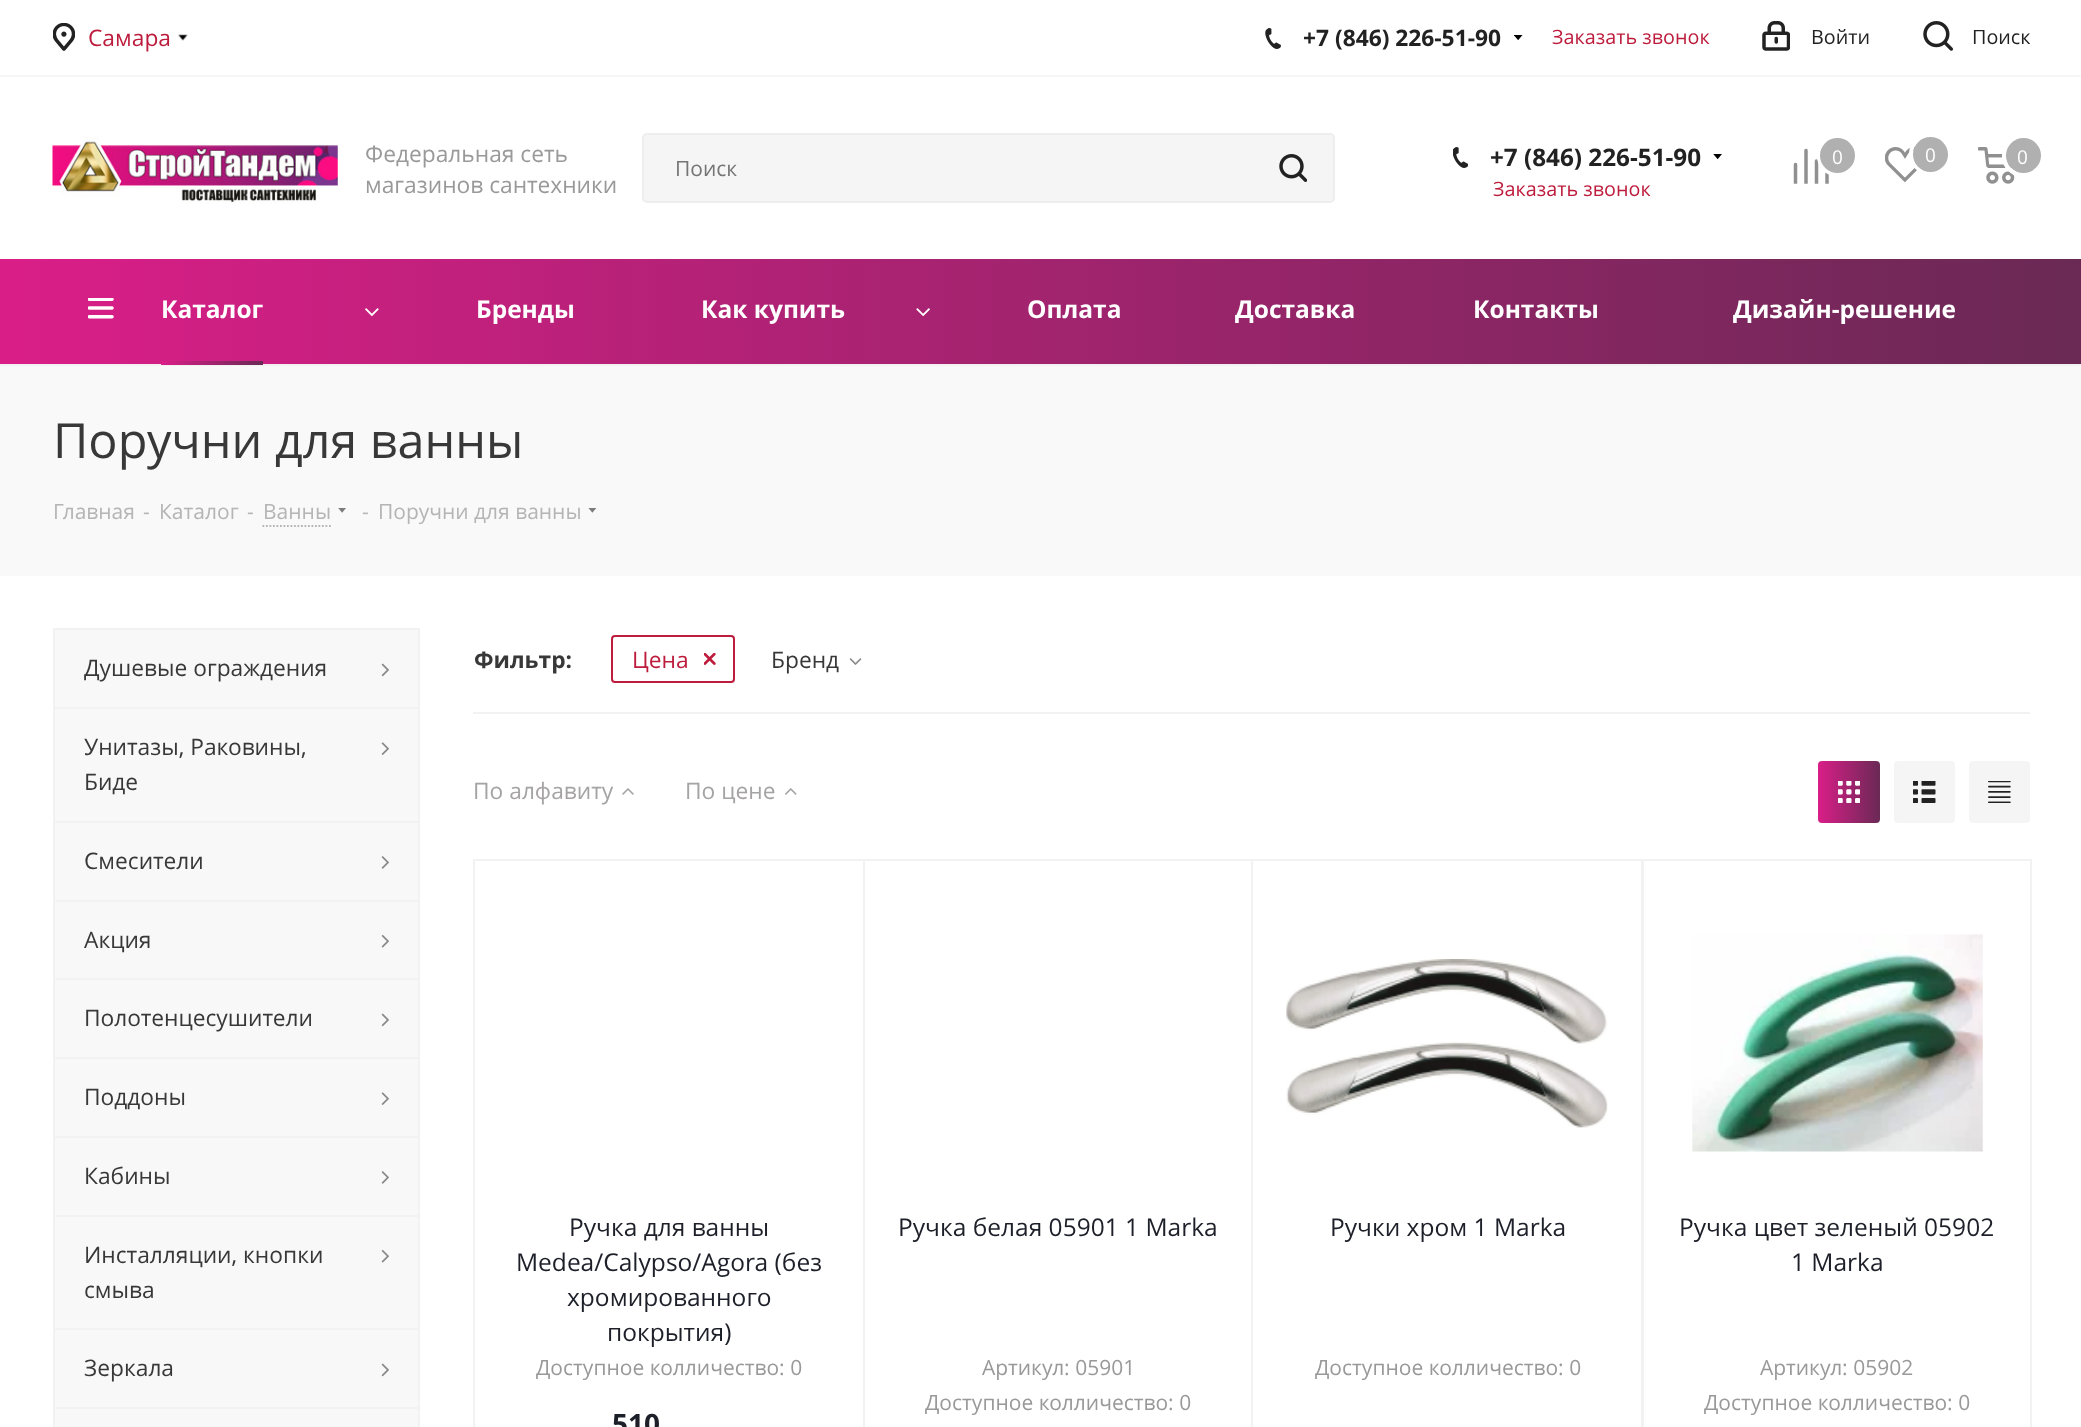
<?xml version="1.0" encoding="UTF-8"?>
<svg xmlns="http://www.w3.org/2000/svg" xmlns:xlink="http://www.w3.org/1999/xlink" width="2081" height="1427">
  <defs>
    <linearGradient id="g1" gradientUnits="userSpaceOnUse" x1="0" y1="312" x2="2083" y2="311"><stop offset="0" stop-color="#da1e88" /><stop offset="1" stop-color="#6a2955" /></linearGradient>
    <linearGradient id="g2" gradientUnits="userSpaceOnUse" x1="161" y1="362" x2="263" y2="362"><stop offset="0" stop-color="#da1e88" /><stop offset="1" stop-color="#6a2955" /></linearGradient>
    <linearGradient id="g3" gradientUnits="userSpaceOnUse" x1="1818" y1="792" x2="1880" y2="792"><stop offset="0" stop-color="#da1e88" /><stop offset="1" stop-color="#6a2955" /></linearGradient>
    <linearGradient id="g4" gradientUnits="userSpaceOnUse" x1="1874" y1="1293" x2="1951" y2="1293"><stop offset="0" stop-color="#ffffff" /><stop offset="1" stop-color="#ffffff" /></linearGradient>
  </defs>
  <rect width="100%" height="100%" fill="#ffffff" />
  <rect y="75" width="2081" height="2" fill="#f6f6f6" />
  <image x="53" y="23" width="22" height="28" xlink:href="image1.png" />
  <image x="178" y="34" width="10" height="7" xlink:href="image2.png" />
  <image x="1265" y="28" width="16" height="21" xlink:href="image3.png" />
  <image x="1514" y="35" width="9" height="5" xlink:href="image4.png" />
  <image x="1762" y="21" width="28" height="30" xlink:href="image5.png" />
  <image x="1923" y="21" width="30" height="30" xlink:href="image6.png" />
  <image x="52" y="136" width="286" height="68" xlink:href="image7.png" />
  <rect x="643" y="134" width="691" height="68" rx="4" fill="#f5f5f5" stroke="#eeeeee" stroke-width="2" />
  <image x="1279" y="154" width="28" height="28" xlink:href="image8.png" />
  <image x="1453" y="147" width="15" height="21" xlink:href="image9.png" />
  <image x="1713" y="154" width="9" height="5" xlink:href="image10.png" />
  <image x="1793" y="148" width="36" height="36" xlink:href="image11.png" />
  <circle cx="1838" cy="156" r="19" fill="none" stroke="#ffffff" stroke-width="4" />
  <circle cx="1837.5" cy="155.5" r="17.5" fill="#b0b0b0" />
  <image x="1885" y="147" width="35" height="35" xlink:href="image12.png" />
  <circle cx="1930" cy="154" r="19" fill="none" stroke="#ffffff" stroke-width="4" />
  <circle cx="1930.5" cy="154.5" r="17.5" fill="#b0b0b0" />
  <image x="1978" y="147" width="37" height="37" xlink:href="image13.png" />
  <circle cx="2023" cy="156" r="19" fill="none" stroke="#ffffff" stroke-width="4" />
  <circle cx="2023" cy="156" r="19" fill="none" stroke="#ffffff" stroke-width="4" />
  <circle cx="2023.5" cy="155.5" r="17.5" fill="#b0b0b0" />
  <rect y="259" width="2081" height="105" fill="url(#g1)" />
  <rect y="364" width="2081" height="2" fill="#f2f2f2" />
  <image x="88" y="298" width="26" height="21" xlink:href="image14.png" />
  <rect x="161" y="361" width="102" height="4" fill="url(#g2)" />
  <image x="365" y="308" width="14" height="9" xlink:href="image15.png" />
  <image x="916" y="308" width="14" height="9" xlink:href="image16.png" />
  <rect y="366" width="2081" height="210" fill="#f9f9f9" />
  <path d="M 262.5 526 h 68.5" fill="none" stroke="#b4b4b4" stroke-width="1.8" stroke-dasharray="1.75 1.75" />
  <image x="338" y="508" width="8" height="5" xlink:href="image17.png" />
  <image x="588" y="508" width="9" height="5" xlink:href="image18.png" />
  <rect x="55" y="630" width="363" height="77" fill="#f8f8f9" />
  <rect x="53" y="628" width="367" height="2" fill="#f2f2f2" />
  <rect x="418" y="628" width="2" height="79" fill="#f2f2f2" />
  <rect x="53" y="628" width="2" height="79" fill="#f2f2f2" />
  <image x="381" y="663" width="8" height="14" xlink:href="image19.png" />
  <rect x="55" y="709" width="363" height="112" fill="#f8f8f9" />
  <rect x="53" y="707" width="367" height="2" fill="#f2f2f2" />
  <rect x="418" y="707" width="2" height="114" fill="#f2f2f2" />
  <rect x="53" y="707" width="2" height="114" fill="#f2f2f2" />
  <image x="381" y="742" width="8" height="13" xlink:href="image20.png" />
  <rect x="55" y="823" width="363" height="77" fill="#f8f8f9" />
  <rect x="53" y="821" width="367" height="2" fill="#f2f2f2" />
  <rect x="418" y="821" width="2" height="79" fill="#f2f2f2" />
  <rect x="53" y="821" width="2" height="79" fill="#f2f2f2" />
  <image x="381" y="856" width="8" height="13" xlink:href="image21.png" />
  <rect x="55" y="902" width="363" height="76" fill="#f8f8f9" />
  <rect x="53" y="900" width="367" height="2" fill="#f2f2f2" />
  <rect x="418" y="900" width="2" height="78" fill="#f2f2f2" />
  <rect x="53" y="900" width="2" height="78" fill="#f2f2f2" />
  <image x="381" y="934" width="8" height="14" xlink:href="image22.png" />
  <rect x="55" y="980" width="363" height="77" fill="#f8f8f9" />
  <rect x="53" y="978" width="367" height="2" fill="#f2f2f2" />
  <rect x="418" y="978" width="2" height="79" fill="#f2f2f2" />
  <rect x="53" y="978" width="2" height="79" fill="#f2f2f2" />
  <image x="381" y="1013" width="8" height="14" xlink:href="image19.png" />
  <rect x="55" y="1059" width="363" height="77" fill="#f8f8f9" />
  <rect x="53" y="1057" width="367" height="2" fill="#f2f2f2" />
  <rect x="418" y="1057" width="2" height="79" fill="#f2f2f2" />
  <rect x="53" y="1057" width="2" height="79" fill="#f2f2f2" />
  <image x="381" y="1092" width="8" height="13" xlink:href="image20.png" />
  <rect x="55" y="1138" width="363" height="77" fill="#f8f8f9" />
  <rect x="53" y="1136" width="367" height="2" fill="#f2f2f2" />
  <rect x="418" y="1136" width="2" height="79" fill="#f2f2f2" />
  <rect x="53" y="1136" width="2" height="79" fill="#f2f2f2" />
  <image x="381" y="1171" width="8" height="13" xlink:href="image21.png" />
  <rect x="55" y="1217" width="363" height="111" fill="#f8f8f9" />
  <rect x="53" y="1215" width="367" height="2" fill="#f2f2f2" />
  <rect x="418" y="1215" width="2" height="113" fill="#f2f2f2" />
  <rect x="53" y="1215" width="2" height="113" fill="#f2f2f2" />
  <image x="381" y="1249" width="8" height="14" xlink:href="image22.png" />
  <rect x="55" y="1330" width="363" height="77" fill="#f8f8f9" />
  <rect x="53" y="1328" width="367" height="2" fill="#f2f2f2" />
  <rect x="418" y="1328" width="2" height="79" fill="#f2f2f2" />
  <rect x="53" y="1328" width="2" height="79" fill="#f2f2f2" />
  <image x="381" y="1363" width="8" height="14" xlink:href="image19.png" />
  <rect x="55" y="1409" width="363" height="18" fill="#f8f8f9" />
  <rect x="53" y="1407" width="367" height="2" fill="#f2f2f2" />
  <rect x="418" y="1407" width="2" height="20" fill="#f2f2f2" />
  <rect x="53" y="1407" width="2" height="20" fill="#f2f2f2" />
  <rect x="473" y="712" width="1557" height="2" fill="#f2f2f2" />
  <rect x="612" y="636" width="122" height="46" rx="3" fill="none" stroke="#bd1c3c" stroke-width="2" />
  <image x="704" y="653" width="12" height="12" xlink:href="image23.png" />
  <image x="849" y="658" width="13" height="7" xlink:href="image24.png" />
  <image x="622" y="788" width="12" height="7" xlink:href="image25.png" />
  <image x="785" y="788" width="12" height="7" xlink:href="image26.png" />
  <rect x="1818" y="761" width="62" height="62" rx="4" fill="url(#g3)" />
  <image x="1838" y="781" width="22" height="22" xlink:href="image27.png" />
  <rect x="1894" y="761" width="61" height="62" rx="4" fill="#f5f5f5" />
  <image x="1913" y="781" width="23" height="22" xlink:href="image28.png" />
  <rect x="1969" y="761" width="61" height="62" rx="4" fill="#f5f5f5" />
  <image x="1988" y="781" width="23" height="22" xlink:href="image29.png" />
  <rect x="474" y="860" width="390" height="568" fill="none" stroke="#f2f2f2" stroke-width="2" />
  <rect x="864" y="860" width="388" height="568" fill="none" stroke="#f2f2f2" stroke-width="2" />
  <rect x="1252" y="860" width="390" height="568" fill="none" stroke="#f2f2f2" stroke-width="2" />
  <image x="1286" y="959" width="322" height="169" xlink:href="image30.png" />
  <rect x="1643" y="860" width="388" height="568" fill="none" stroke="#f2f2f2" stroke-width="2" />
  <image x="1692" y="934" width="291" height="218" xlink:href="image31.png" />
  <text x="88" y="46" style="font-family: Open Sans; font-size: 22.75px; fill: #bd1c3c">Самара</text>
  <text x="1303" y="46" style="font-family: Open Sans; font-size: 22.75px; font-weight: bold; fill: #222222">+7 (846) 226-51-90</text>
  <text x="1552" y="44" style="font-family: Open Sans; font-size: 19.75px; fill: #bd1c3c">Заказать звонок</text>
  <text x="1811" y="44" style="font-family: Open Sans; font-size: 19.75px; fill: #222222">Войти</text>
  <text x="1972" y="44" style="font-family: Open Sans; font-size: 19.75px; fill: #222222">Поиск</text>
  <text x="365" y="162" style="font-family: Open Sans; font-size: 22.75px; fill: #999999">Федеральная сеть</text>
  <text x="365" y="193" style="font-family: Open Sans; font-size: 22.75px; fill: #999999">магазинов сантехники</text>
  <text x="675" y="176" style="font-family: Open Sans; font-size: 21px; fill: #757575">Поиск</text>
  <text x="1490" y="166" style="font-family: Open Sans; font-size: 24.25px; font-weight: bold; fill: #222222">+7 (846) 226-51-90</text>
  <text x="1493" y="196" style="font-family: Open Sans; font-size: 19.75px; fill: #bd1c3c">Заказать звонок</text>
  <text x="1832" y="164" style="font-family: Open Sans; font-size: 19px; fill: #ffffff">0</text>
  <text x="1925" y="162" style="font-family: Open Sans; font-size: 19px; fill: #ffffff">0</text>
  <text x="2017" y="164" style="font-family: Open Sans; font-size: 19px; fill: #ffffff">0</text>
  <text x="161" y="318" style="font-family: Open Sans; font-size: 24.5px; font-weight: bold; fill: #ffffff">Каталог</text>
  <text x="476" y="318" style="font-family: Open Sans; font-size: 24.5px; font-weight: bold; fill: #ffffff">Бренды</text>
  <text x="701" y="318" style="font-family: Open Sans; font-size: 24.5px; font-weight: bold; fill: #ffffff">Как купить</text>
  <text x="1027" y="318" style="font-family: Open Sans; font-size: 24.5px; font-weight: bold; fill: #ffffff">Оплата</text>
  <text x="1235" y="318" style="font-family: Open Sans; font-size: 24.5px; font-weight: bold; fill: #ffffff">Доставка</text>
  <text x="1473" y="318" style="font-family: Open Sans; font-size: 24.5px; font-weight: bold; fill: #ffffff">Контакты</text>
  <text x="1733" y="318" style="font-family: Open Sans; font-size: 24.5px; font-weight: bold; fill: #ffffff">Дизайн-решение</text>
  <text x="53" y="458" style="font-family: Open Sans; font-size: 48.5px; fill: #383838">Поручни для ванны</text>
  <text x="53" y="519" style="font-family: Open Sans; font-size: 21px; fill: #b6b5b5">Главная</text>
  <text x="143" y="519" style="font-family: Open Sans; font-size: 21px; fill: #b6b5b5">-</text>
  <text x="159" y="519" style="font-family: Open Sans; font-size: 21px; fill: #b6b5b5">Каталог</text>
  <text x="247" y="519" style="font-family: Open Sans; font-size: 21px; fill: #b6b5b5">-</text>
  <text x="263" y="519" style="font-family: Open Sans; font-size: 21px; fill: #b6b5b5">Ванны</text>
  <text x="362" y="519" style="font-family: Open Sans; font-size: 21px; fill: #b6b5b5">-</text>
  <text x="378" y="519" style="font-family: Open Sans; font-size: 21px; fill: #b6b5b5">Поручни для ванны</text>
  <text x="84" y="676" style="font-family: Open Sans; font-size: 22.75px; fill: #383838">Душевые ограждения</text>
  <text x="84" y="755" style="font-family: Open Sans; font-size: 22.75px; fill: #383838">Унитазы, Раковины,</text>
  <text x="84" y="790" style="font-family: Open Sans; font-size: 22.75px; fill: #383838">Биде</text>
  <text x="84" y="869" style="font-family: Open Sans; font-size: 22.75px; fill: #383838">Смесители</text>
  <text x="84" y="948" style="font-family: Open Sans; font-size: 22.75px; fill: #383838">Акция</text>
  <text x="84" y="1026" style="font-family: Open Sans; font-size: 22.75px; fill: #383838">Полотенцесушители</text>
  <text x="84" y="1105" style="font-family: Open Sans; font-size: 22.75px; fill: #383838">Поддоны</text>
  <text x="84" y="1184" style="font-family: Open Sans; font-size: 22.75px; fill: #383838">Кабины</text>
  <text x="84" y="1263" style="font-family: Open Sans; font-size: 22.75px; fill: #383838">Инсталляции, кнопки</text>
  <text x="84" y="1298" style="font-family: Open Sans; font-size: 22.75px; fill: #383838">смыва</text>
  <text x="84" y="1376" style="font-family: Open Sans; font-size: 22.75px; fill: #383838">Зеркала</text>
  <text x="474" y="668" style="font-family: Open Sans; font-size: 22.75px; font-weight: bold; fill: #383838">Фильтр:</text>
  <text x="632" y="668" style="font-family: Open Sans; font-size: 22.75px; fill: #bd1c3c">Цена</text>
  <text x="771" y="668" style="font-family: Open Sans; font-size: 22.75px; fill: #383838">Бренд</text>
  <text x="473" y="799" style="font-family: Open Sans; font-size: 22.75px; fill: #a5a3a3">По алфавиту</text>
  <text x="685" y="799" style="font-family: Open Sans; font-size: 22.75px; fill: #a5a3a3">По цене</text>
  <text x="569" y="1236" style="font-family: Open Sans; font-size: 24.5px; fill: #1d2029">Ручка для ванны</text>
  <text x="516" y="1271" style="font-family: Open Sans; font-size: 24.5px; fill: #1d2029">Medea/Calypso/Agora (без</text>
  <text x="567" y="1306" style="font-family: Open Sans; font-size: 24.5px; fill: #1d2029">хромированного</text>
  <text x="607" y="1341" style="font-family: Open Sans; font-size: 24.5px; fill: #1d2029">покрытия)</text>
  <text x="536" y="1375" style="font-family: Open Sans; font-size: 21px; fill: #999999">Доступное колличество: 0</text>
  <text x="612" y="1434" style="font-family: Open Sans; font-size: 28px; font-weight: bold; fill: #1d2029">510</text>
  <text x="898" y="1236" style="font-family: Open Sans; font-size: 24.5px; fill: #1d2029">Ручка белая 05901 1 Marka</text>
  <text x="982" y="1375" style="font-family: Open Sans; font-size: 21px; fill: #999999">Артикул: 05901</text>
  <text x="925" y="1410" style="font-family: Open Sans; font-size: 21px; fill: #999999">Доступное колличество: 0</text>
  <text x="1330" y="1236" style="font-family: Open Sans; font-size: 24.5px; fill: #1d2029">Ручки хром 1 Marka</text>
  <text x="1315" y="1375" style="font-family: Open Sans; font-size: 21px; fill: #999999">Доступное колличество: 0</text>
  <text x="1679" y="1236" style="font-family: Open Sans; font-size: 24.5px; fill: #1d2029">Ручка цвет зеленый 05902</text>
  <text x="1791" y="1271" style="font-family: Open Sans; font-size: 24.5px; fill: #1d2029">1 Marka</text>
  <text x="1760" y="1375" style="font-family: Open Sans; font-size: 21px; fill: #999999">Артикул: 05902</text>
  <text x="1704" y="1410" style="font-family: Open Sans; font-size: 21px; fill: #999999">Доступное колличество: 0</text>
  <circle cx="1912.5" cy="1293.5" r="38.5" fill="url(#g4)" />
</svg>
